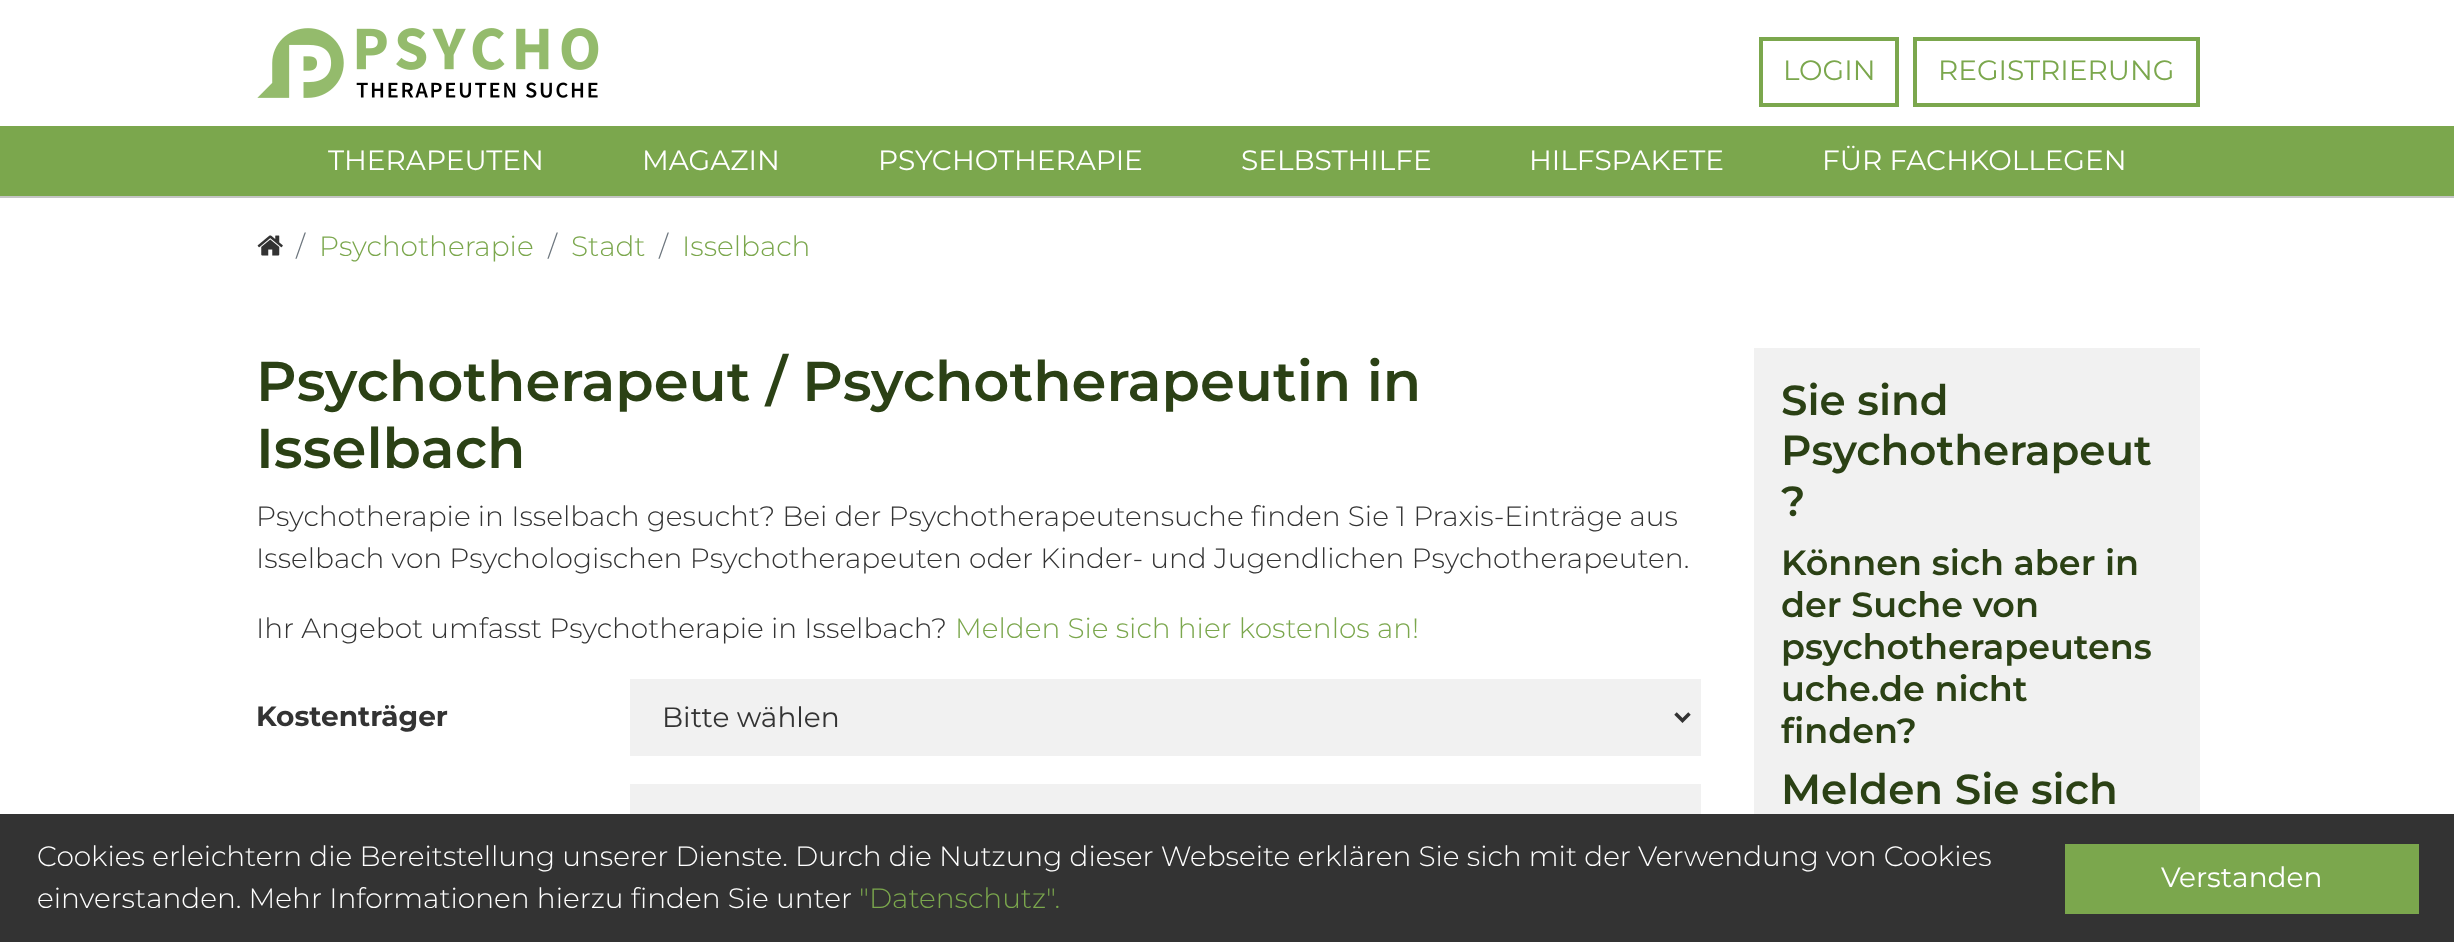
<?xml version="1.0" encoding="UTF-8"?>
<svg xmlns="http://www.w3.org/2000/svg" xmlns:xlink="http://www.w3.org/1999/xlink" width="2454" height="942">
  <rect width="100%" height="100%" fill="#ffffff" />
  <image x="257" y="28" width="342" height="70" xlink:href="image1.png" />
  <rect x="1761" y="39" width="136" height="66" fill="none" stroke="#7ba74d" stroke-width="4" />
  <rect x="1915" y="39" width="283" height="66" fill="none" stroke="#7ba74d" stroke-width="4" />
  <rect y="196" width="2454" height="2" fill="#c5c5c5" />
  <rect y="126" width="2454" height="70" fill="#7ba74d" />
  <image x="257" y="235" width="26" height="21" xlink:href="image2.png" />
  <rect x="630" y="679" width="1071" height="77" fill="#f1f1f1" />
  <path d="M 1675.5 713.5 l 7 7 l 7 -7" fill="none" stroke="#333333" stroke-width="3.5" />
  <rect x="630" y="784" width="1071" height="30" fill="#f1f1f1" />
  <rect x="1754" y="348" width="446" height="466" fill="#f1f1f1" />
  <rect y="814" width="2454" height="128" fill="#333333" />
  <rect x="2065" y="844" width="354" height="70" fill="#7ba74d" />
  <text x="1783" y="80" style="font-family: 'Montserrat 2'; font-size: 28px; font-weight: 100; fill: #7ba74d">LOGIN</text>
  <text x="1938" y="80" style="font-family: 'Montserrat 2'; font-size: 28px; font-weight: 100; fill: #7ba74d">REGISTRIERUNG</text>
  <text x="328" y="170" style="font-family: 'Montserrat 2'; font-size: 28px; font-weight: 100; fill: #ffffff">THERAPEUTEN</text>
  <text x="642" y="170" style="font-family: 'Montserrat 2'; font-size: 28px; font-weight: 100; fill: #ffffff">MAGAZIN</text>
  <text x="878" y="170" style="font-family: 'Montserrat 2'; font-size: 28px; font-weight: 100; fill: #ffffff">PSYCHOTHERAPIE</text>
  <text x="1241" y="170" style="font-family: 'Montserrat 2'; font-size: 28px; font-weight: 100; fill: #ffffff">SELBSTHILFE</text>
  <text x="1529" y="170" style="font-family: 'Montserrat 2'; font-size: 28px; font-weight: 100; fill: #ffffff">HILFSPAKETE</text>
  <text x="1822" y="170" style="font-family: 'Montserrat 2'; font-size: 28px; font-weight: 100; fill: #ffffff">FÜR FACHKOLLEGEN</text>
  <text x="296" y="256" style="font-family: Montserrat; font-size: 28px; font-weight: 100; fill: #6c757d">/</text>
  <text x="319" y="256" style="font-family: Montserrat; font-size: 28px; font-weight: 100; fill: #7ba74d">Psychotherapie</text>
  <text x="548" y="256" style="font-family: Montserrat; font-size: 28px; font-weight: 100; fill: #6c757d">/</text>
  <text x="571" y="256" style="font-family: Montserrat; font-size: 28px; font-weight: 100; fill: #7ba74d">Stadt</text>
  <text x="659" y="256" style="font-family: Montserrat; font-size: 28px; font-weight: 100; fill: #6c757d">/</text>
  <text x="682" y="256" style="font-family: Montserrat; font-size: 28px; font-weight: 100; fill: #7ba74d">Isselbach</text>
  <text x="256" y="401" style="font-family: 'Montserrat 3'; font-size: 56px; font-weight: 100; fill: #2b4115">Psychotherapeut / Psychotherapeutin in</text>
  <text x="256" y="468" style="font-family: 'Montserrat 3'; font-size: 56px; font-weight: 100; fill: #2b4115">Isselbach</text>
  <text x="256" y="526" style="font-family: Montserrat; font-size: 28px; font-weight: 100; fill: #333333">Psychotherapie in Isselbach gesucht? Bei der Psychotherapeutensuche finden Sie 1 Praxis-Einträge aus</text>
  <text x="256" y="568" style="font-family: Montserrat; font-size: 28px; font-weight: 100; fill: #333333">Isselbach von Psychologischen Psychotherapeuten oder Kinder- und Jugendlichen Psychotherapeuten.</text>
  <text x="256" y="638" style="font-family: Montserrat; font-size: 28px; font-weight: 100; fill: #333333">Ihr Angebot umfasst Psychotherapie in Isselbach?</text>
  <text x="955" y="638" style="font-family: Montserrat; font-size: 28px; font-weight: 100; fill: #7ba74d">Melden Sie sich hier kostenlos an!</text>
  <text x="256" y="726" style="font-family: 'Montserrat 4'; font-size: 28px; font-weight: 100; fill: #333333">Kostenträger</text>
  <text x="662" y="727" style="font-family: 'Montserrat 2'; font-size: 28px; font-weight: 100; fill: #333333">Bitte wählen</text>
  <text x="1781" y="415" style="font-family: 'Montserrat 3'; font-size: 42px; font-weight: 100; fill: #2b4115">Sie sind</text>
  <text x="1781" y="465" style="font-family: 'Montserrat 3'; font-size: 42px; font-weight: 100; fill: #2b4115">Psychotherapeut</text>
  <text x="1781" y="516" style="font-family: 'Montserrat 3'; font-size: 42px; font-weight: 100; fill: #2b4115">?</text>
  <text x="1781" y="575" style="font-family: 'Montserrat 3'; font-size: 35px; font-weight: 100; fill: #2b4115">Können sich aber in</text>
  <text x="1781" y="617" style="font-family: 'Montserrat 3'; font-size: 35px; font-weight: 100; fill: #2b4115">der Suche von</text>
  <text x="1781" y="659" style="font-family: 'Montserrat 3'; font-size: 35px; font-weight: 100; fill: #2b4115">psychotherapeutens</text>
  <text x="1781" y="701" style="font-family: 'Montserrat 3'; font-size: 35px; font-weight: 100; fill: #2b4115">uche.de nicht</text>
  <text x="1781" y="743" style="font-family: 'Montserrat 3'; font-size: 35px; font-weight: 100; fill: #2b4115">finden?</text>
  <text x="1781" y="804" style="font-family: 'Montserrat 3'; font-size: 42px; font-weight: 100; fill: #2b4115">Melden Sie sich</text>
  <text x="37" y="866" style="font-family: Montserrat; font-size: 28px; font-weight: 100; fill: #ffffff">Cookies erleichtern die Bereitstellung unserer Dienste. Durch die Nutzung dieser Webseite erklären Sie sich mit der Verwendung von Cookies</text>
  <text x="37" y="908" style="font-family: Montserrat; font-size: 28px; font-weight: 100; fill: #ffffff">einverstanden. Mehr Informationen hierzu finden Sie unter</text>
  <text x="859" y="908" style="font-family: Montserrat; font-size: 28px; font-weight: 100; fill: #7ba74d">"Datenschutz".</text>
  <text x="2161" y="887" style="font-family: 'Montserrat 2'; font-size: 28px; font-weight: 100; fill: #ffffff">Verstanden</text>
</svg>
